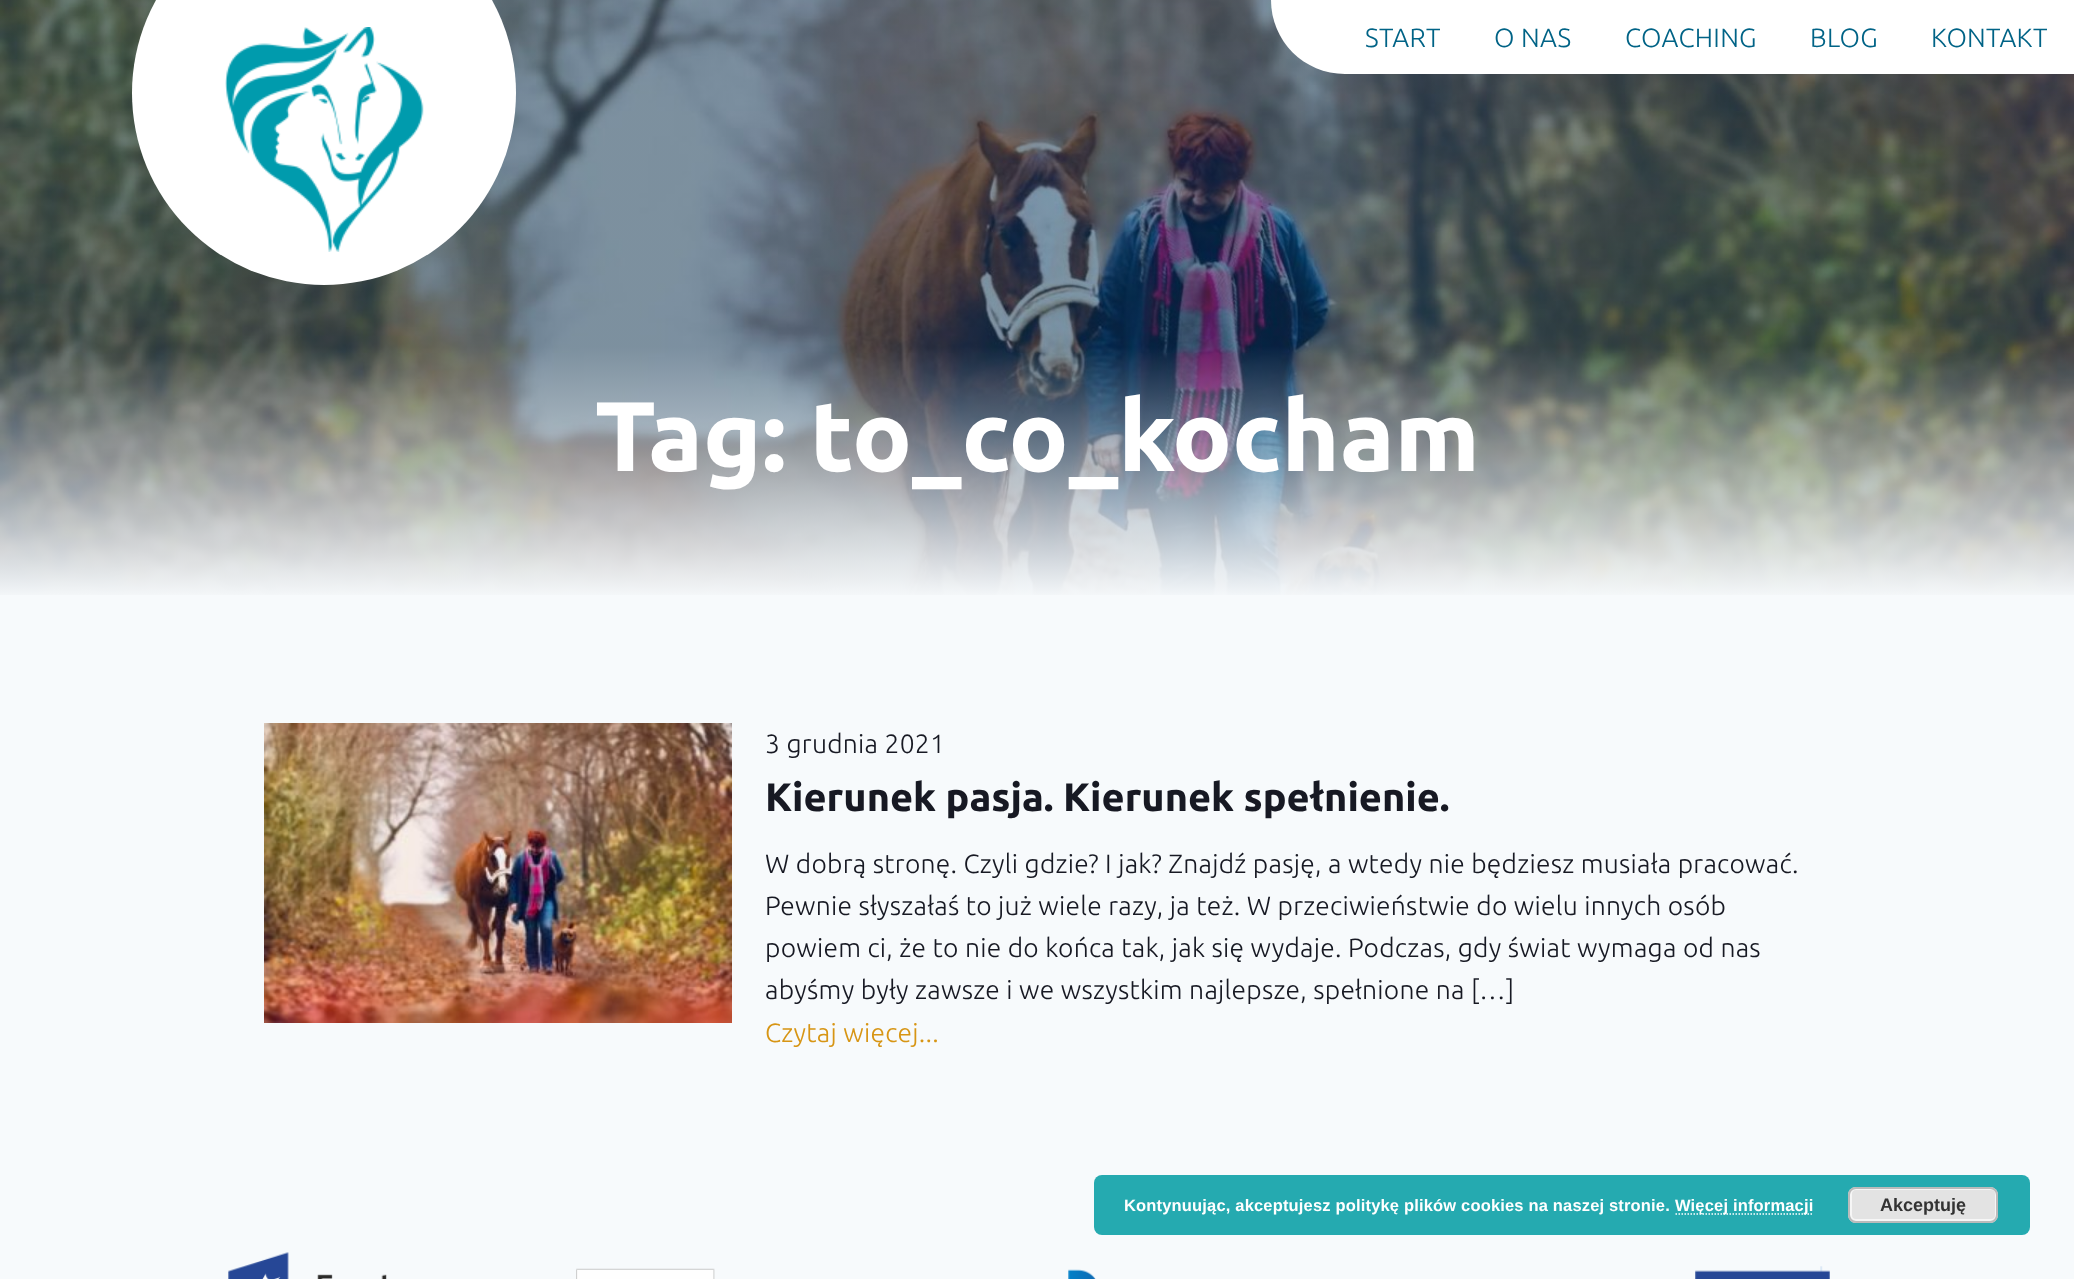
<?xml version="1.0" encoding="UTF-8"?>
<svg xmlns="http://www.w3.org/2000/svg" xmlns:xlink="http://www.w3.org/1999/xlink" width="2074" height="1279">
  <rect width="100%" height="100%" fill="#f7fafc" />
  <image x="0" y="0" width="2074" height="595" xlink:href="image1.png" />
  <circle cx="324" cy="93" r="192" fill="#ffffff" />
  <image x="225" y="27" width="199" height="225" xlink:href="image2.png" />
  <path d="M 1271 0 h 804 v 74 h -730 c -41 0 -74 -33 -74 -74 z" fill="#ffffff" />
  <image x="264" y="723" width="468" height="300" xlink:href="image3.png" />
  <rect x="1094" y="1175" width="936" height="60" rx="8" fill="#25aab0" />
  <path d="M 1675.5 1214 h 138" fill="none" stroke="#ffffff" stroke-width="1.5" stroke-dasharray="1.5 1.5" />
  <rect x="1848" y="1187" width="150" height="36" rx="8" fill="#e3e3e3" />
  <rect x="1851" y="1189" width="145" height="31" rx="5" fill="none" stroke="#f6f6f6" stroke-width="2" />
  <rect x="1849" y="1188" width="148" height="34" rx="7" fill="none" stroke="#bbbbbb" stroke-width="2" />
  <image x="228" y="1252" width="159" height="27" xlink:href="image4.png" />
  <image x="576" y="1268" width="139" height="11" xlink:href="image5.png" />
  <image x="1068" y="1269" width="28" height="10" xlink:href="image6.png" />
  <image x="1695" y="1266" width="135" height="13" xlink:href="image7.png" />
  <text x="1365" y="47" style="font-family: Ubuntu; font-size: 26.4px; font-weight: 300; letter-spacing: 0.25px; fill: #006386">START</text>
  <text x="1494" y="47" style="font-family: Ubuntu; font-size: 26.4px; font-weight: 300; letter-spacing: 0.25px; fill: #006386">O NAS</text>
  <text x="1625" y="47" style="font-family: Ubuntu; font-size: 26.4px; font-weight: 300; letter-spacing: 0.25px; fill: #006386">COACHING</text>
  <text x="1810" y="47" style="font-family: Ubuntu; font-size: 26.4px; font-weight: 300; letter-spacing: 0.25px; fill: #006386">BLOG</text>
  <text x="1931" y="47" style="font-family: Ubuntu; font-size: 26.4px; font-weight: 300; letter-spacing: 0.25px; fill: #006386">KONTAKT</text>
  <text x="595" y="471" style="font-family: Ubuntu; font-size: 99px; font-weight: bold; fill: #ffffff">Tag: to_co_kocham</text>
  <text x="765" y="753" style="font-family: Ubuntu; font-size: 26.4px; font-weight: 300; letter-spacing: 0.25px; fill: #171923">3 grudnia 2021</text>
  <text x="765" y="811" style="font-family: Ubuntu; font-size: 39.6px; font-weight: bold; fill: #171923">Kierunek pasja. Kierunek spełnienie.</text>
  <text x="765" y="873" style="font-family: Ubuntu; font-size: 26.4px; font-weight: 300; letter-spacing: 0.25px; fill: #171923">W dobrą stronę. Czyli gdzie? I jak? Znajdź pasję, a wtedy nie będziesz musiała pracować.</text>
  <text x="765" y="915" style="font-family: Ubuntu; font-size: 26.4px; font-weight: 300; letter-spacing: 0.25px; fill: #171923">Pewnie słyszałaś to już wiele razy, ja też. W przeciwieństwie do wielu innych osób</text>
  <text x="765" y="957" style="font-family: Ubuntu; font-size: 26.4px; font-weight: 300; letter-spacing: 0.25px; fill: #171923">powiem ci, że to nie do końca tak, jak się wydaje. Podczas, gdy świat wymaga od nas</text>
  <text x="765" y="999" style="font-family: Ubuntu; font-size: 26.4px; font-weight: 300; letter-spacing: 0.25px; fill: #171923">abyśmy były zawsze i we wszystkim najlepsze, spełnione na […]</text>
  <text x="765" y="1042" style="font-family: Ubuntu; font-size: 26.4px; font-weight: 300; letter-spacing: 0.25px; fill: #d79514">Czytaj więcej...</text>
  <text x="1124" y="1211" style="font-family: Liberation Sans; font-size: 16.5px; font-weight: bold; letter-spacing: 0.17px; fill: #ffffff">Kontynuując, akceptujesz politykę plików cookies na naszej stronie.</text>
  <text x="1675" y="1211" style="font-family: Liberation Sans; font-size: 16.5px; font-weight: bold; letter-spacing: 0.17px; fill: #ffffff">Więcej informacji</text>
  <text x="1880" y="1211" style="font-family: Liberation Sans; font-size: 18px; font-weight: bold; fill: #333333">Akceptuję</text>
</svg>
